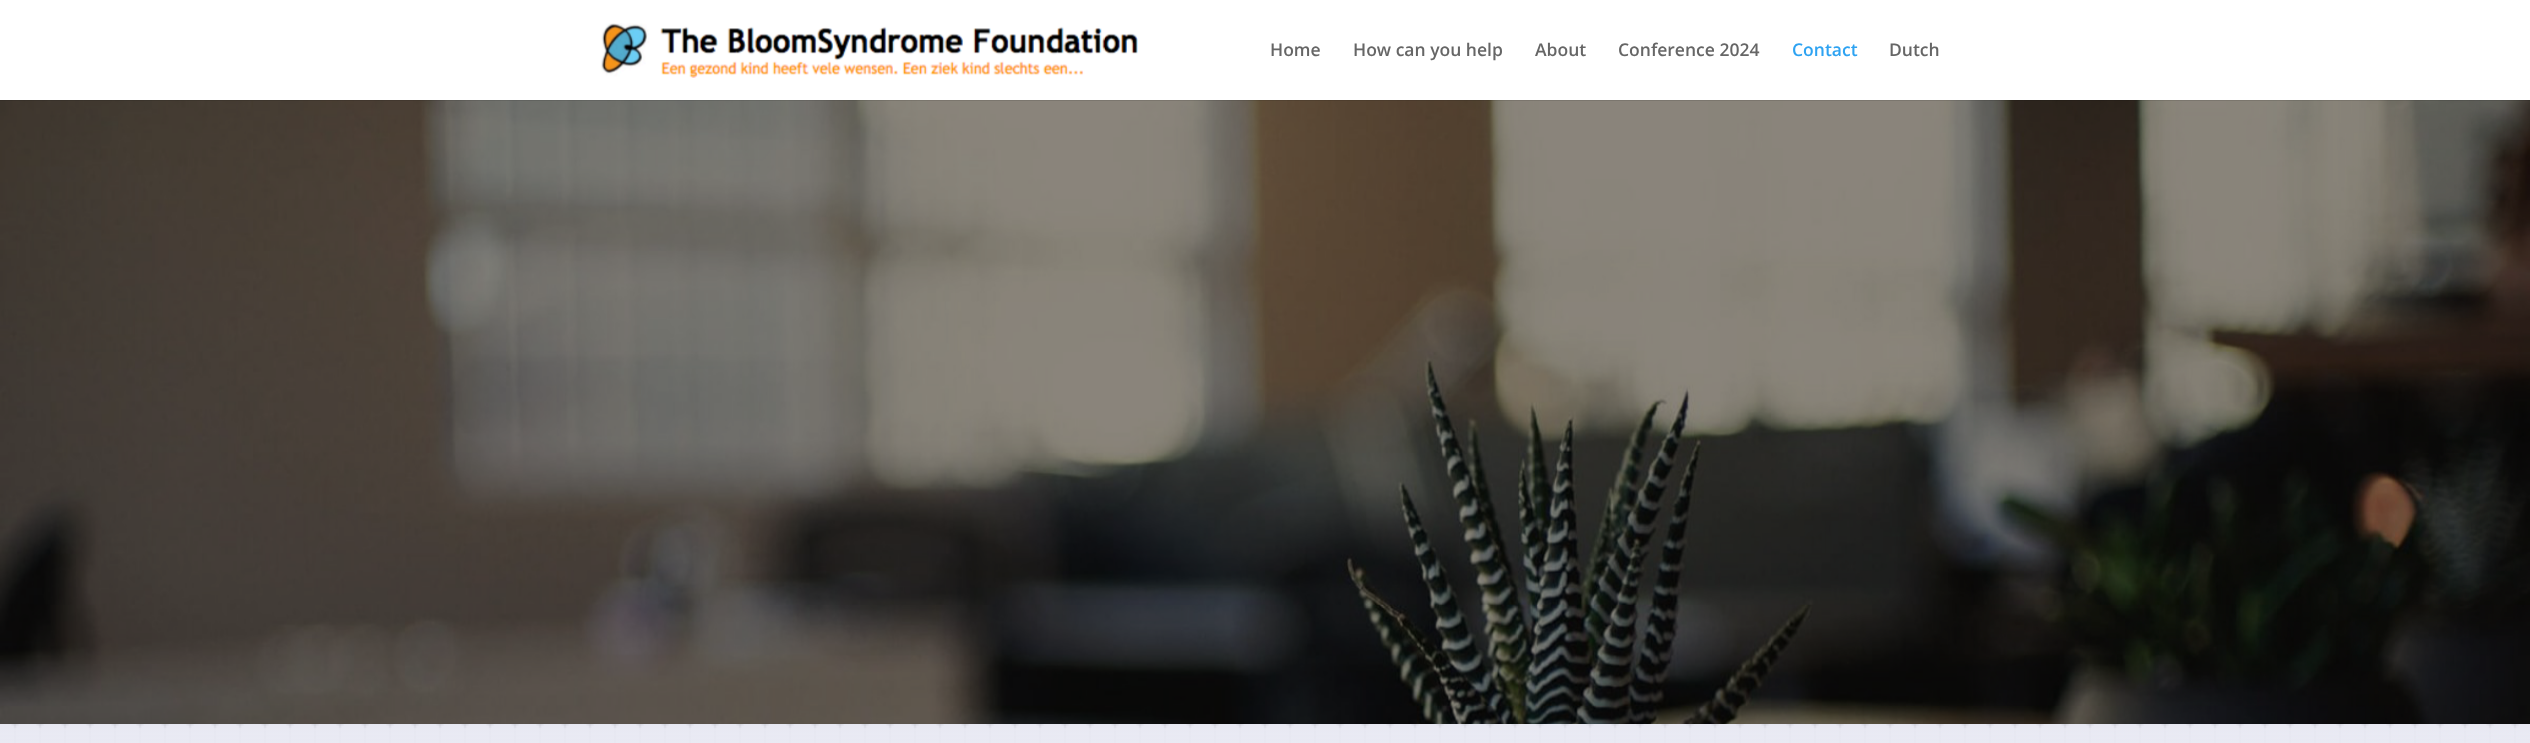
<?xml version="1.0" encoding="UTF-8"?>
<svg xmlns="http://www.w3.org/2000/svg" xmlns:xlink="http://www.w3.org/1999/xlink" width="2530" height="743">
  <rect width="100%" height="100%" fill="#ffffff" />
  <image x="0" y="100" width="2530" height="624" xlink:href="image2.png" />
  <rect y="100" width="2530" height="1" fill="#000000" fill-opacity="0.1" />
  <image x="600" y="23" width="538" height="55" xlink:href="image1.png" />
  <image x="0" y="724" width="2530" height="19" xlink:href="image3.png" />
  <text x="1270" y="56" style="font-family: Open Sans; font-size: 17.5px; font-weight: 600; fill: #666666">Home</text>
  <text x="1353" y="56" style="font-family: Open Sans; font-size: 17.5px; font-weight: 600; fill: #666666">How can you help</text>
  <text x="1535" y="56" style="font-family: Open Sans; font-size: 17.5px; font-weight: 600; fill: #666666">About</text>
  <text x="1618" y="56" style="font-family: Open Sans; font-size: 17.5px; font-weight: 600; fill: #666666">Conference 2024</text>
  <text x="1792" y="56" style="font-family: Open Sans; font-size: 17.5px; font-weight: 600; fill: #2ea3f2">Contact</text>
  <text x="1889" y="56" style="font-family: Open Sans; font-size: 17.5px; font-weight: 600; fill: #666666">Dutch</text>
</svg>
